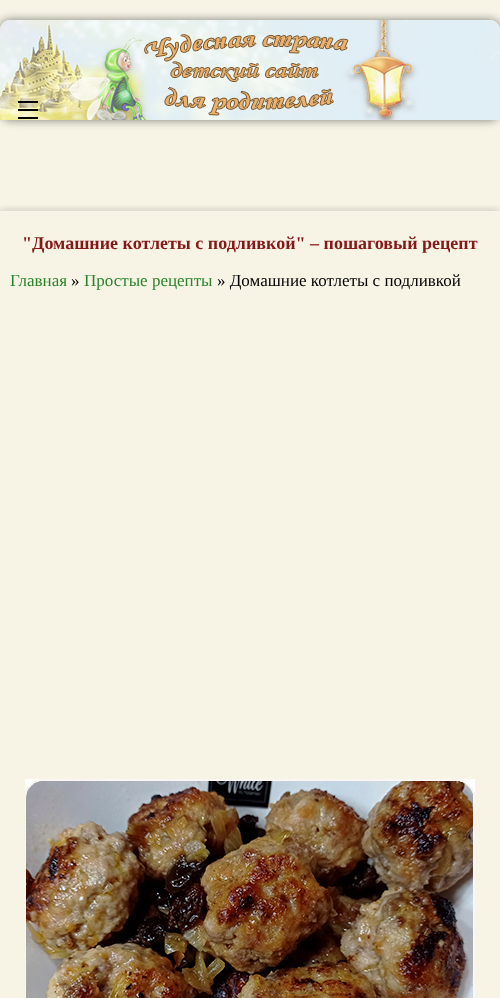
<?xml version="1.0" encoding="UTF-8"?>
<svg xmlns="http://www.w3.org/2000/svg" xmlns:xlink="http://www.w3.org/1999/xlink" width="500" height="998">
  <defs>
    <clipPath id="clip1"><rect x="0" y="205" width="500" height="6" /></clipPath>
  </defs>
  <rect width="100%" height="100%" fill="#f7f4e6" />
  <rect y="20" width="500" height="100" rx="10" fill="#000000" fill-opacity="0.5" filter="blur(5px)" />
  <path d="M 10 20 h 480 c 5.5 0 10 4.5 10 10 v 90 h -500 v -90 c 0 -5.5 4.5 -10 10 -10 z" fill="#f7f4e6" />
  <image x="0" y="20" width="500" height="100" xlink:href="image1.png" />
  <rect x="18" y="109" width="20" height="2" fill="#050505" />
  <rect x="18" y="101" width="20" height="2" fill="#050505" />
  <rect x="18" y="117" width="20" height="2" fill="#050505" />
  <g clip-path="url(#clip1)">
    <rect y="211" width="500" height="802" fill="#000000" fill-opacity="0.2" filter="blur(5px)" />
  </g>
  <image x="25" y="779" width="450" height="219" xlink:href="image2.png" />
  <text x="22" y="249" style="font-family: Liberation Serif; font-size: 18px; font-weight: bold; fill: #861817">"Домашние котлеты с подливкой" – пошаговый рецепт</text>
  <text x="10" y="286" style="font-family: Liberation Serif; font-size: 17px; fill: #29842b">Главная</text>
  <text x="71" y="286" style="font-family: Liberation Serif; font-size: 17px; fill: #000000">»</text>
  <text x="84" y="286" style="font-family: Liberation Serif; font-size: 17px; fill: #29842b">Простые рецепты</text>
  <text x="217" y="286" style="font-family: Liberation Serif; font-size: 17px; fill: #000000">» Домашние котлеты с подливкой</text>
</svg>
